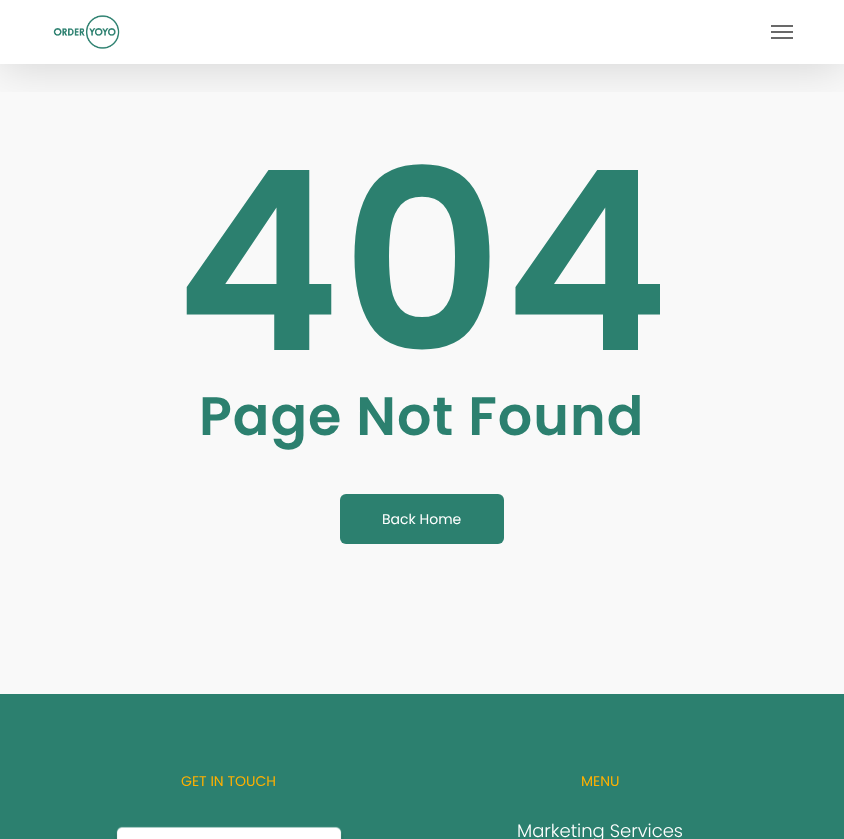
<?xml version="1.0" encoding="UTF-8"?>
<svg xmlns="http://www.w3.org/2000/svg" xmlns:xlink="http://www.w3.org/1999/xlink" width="844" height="839">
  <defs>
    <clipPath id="clip1"><rect x="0" y="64" width="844" height="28" /></clipPath>
  </defs>
  <rect width="100%" height="100%" fill="#ffffff" />
  <rect y="64" width="844" height="630" fill="#f9f9f9" />
  <g clip-path="url(#clip1)">
    <rect y="3" width="844" height="64" fill="#000000" fill-opacity="0.15" filter="blur(22.5px)" />
  </g>
  <image x="53" y="15" width="67" height="34" xlink:href="image1.png" />
  <rect x="771" y="25" width="22" height="2" fill="#696969" />
  <rect x="771" y="37" width="22" height="2" fill="#696969" />
  <rect x="771" y="31" width="22" height="2" fill="#696969" />
  <rect x="340" y="494" width="164" height="50" rx="6" fill="#2c806f" />
  <rect y="694" width="844" height="145" fill="#2c806f" />
  <image x="114" y="826" width="230" height="13" xlink:href="image2.png" />
  <text x="175" y="350" style="font-family: Poppins; font-size: 250px; font-weight: 600; letter-spacing: 1px; fill: #2c806f">404</text>
  <text x="199" y="435" style="font-family: Poppins; font-size: 54px; font-weight: 600; letter-spacing: 1px; fill: #2c806f">Page Not Found</text>
  <text x="382" y="524" style="font-family: Poppins; font-size: 14px; fill: #ffffff">Back Home</text>
  <text x="181" y="786" style="font-family: Poppins; font-size: 14px; fill: #ffb000">GET IN TOUCH</text>
  <text x="581" y="786" style="font-family: Poppins; font-size: 14px; fill: #ffb000">MENU</text>
  <text x="517" y="837" style="font-family: Poppins; font-size: 18px; font-weight: 300; fill: #ffffff">Marketing Services</text>
</svg>
